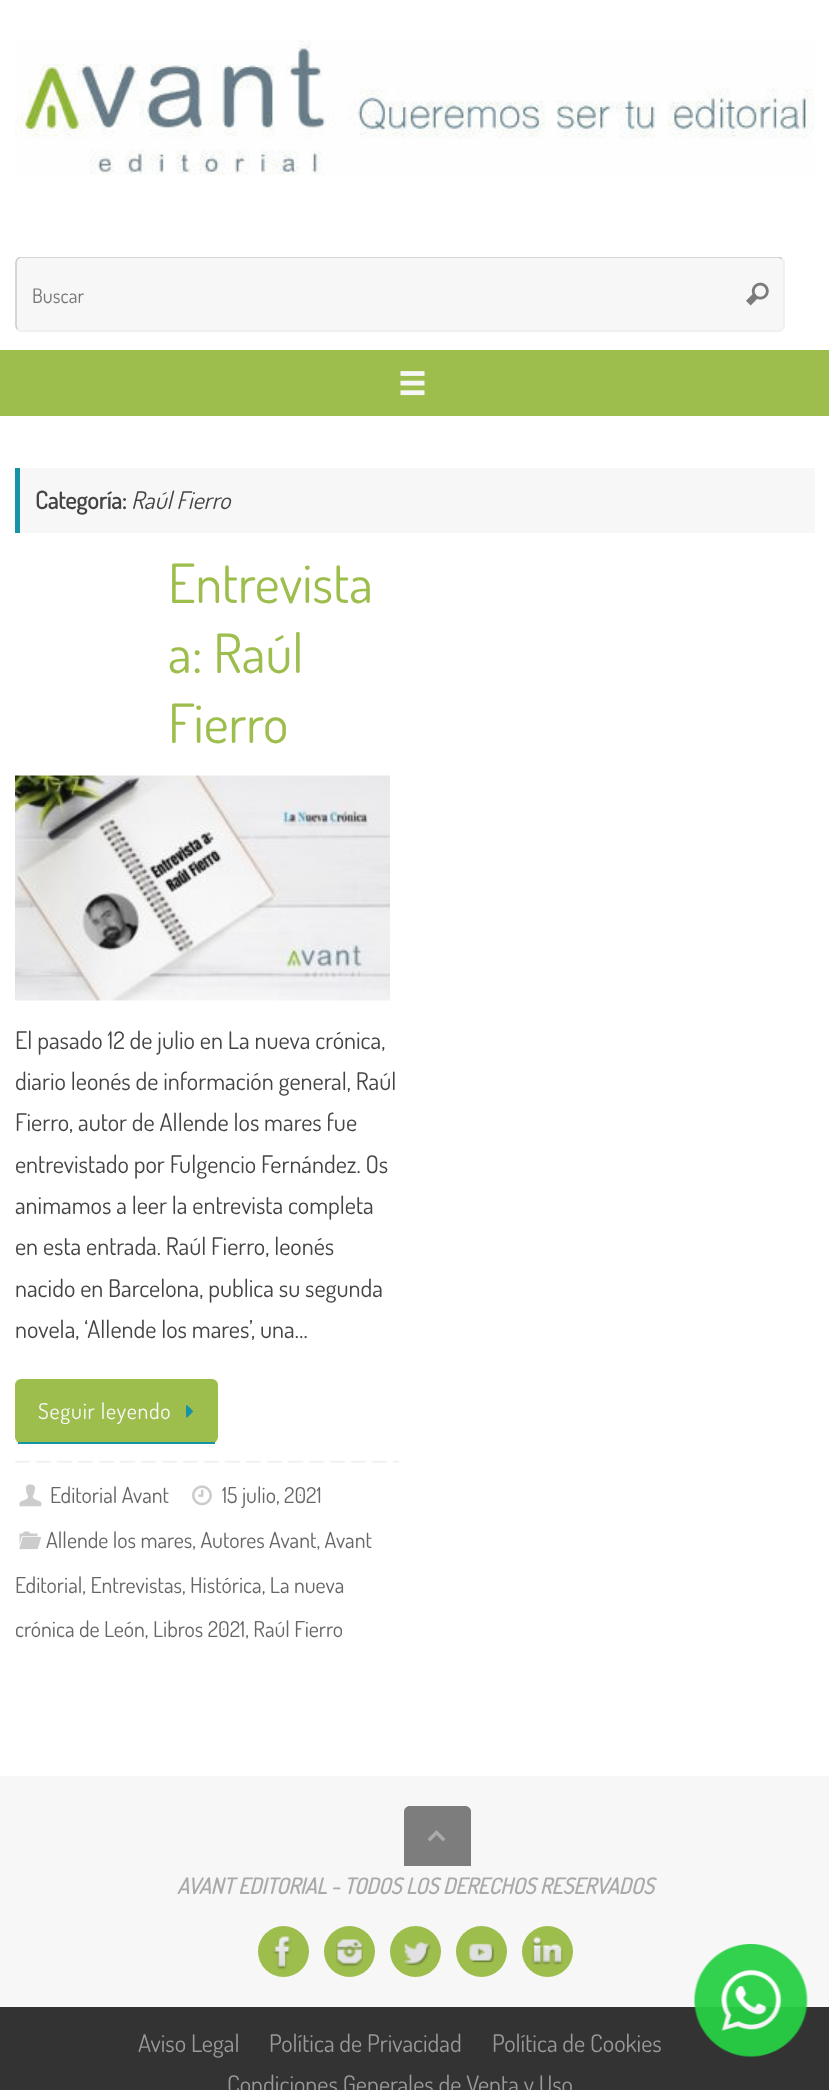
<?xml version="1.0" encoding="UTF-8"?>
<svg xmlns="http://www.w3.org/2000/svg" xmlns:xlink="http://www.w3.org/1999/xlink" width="829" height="2090">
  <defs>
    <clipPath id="clip1"><rect x="15" y="257" width="770" height="75" /></clipPath>
  </defs>
  <rect width="100%" height="100%" fill="#ffffff" />
  <image x="15" y="39" width="799" height="136" xlink:href="image1.png" />
  <rect x="15" y="257" width="770" height="75" rx="6" fill="#f7f7f7" />
  <path d="M 782 259 c 1 1 2 2 2 3.5 v 63 c 0 1.5 -1 2.5 -2 3.5 c -1 1 -2 2 -3.5 2 h -757.5 c -1.5 0 -2.5 -1 -3.5 -2" fill="none" stroke="#eeeeee" stroke-width="1.5" />
  <g clip-path="url(#clip1)">
    <path d="M 17.5 329 c -1 -1 -1.5 -2 -1.5 -3.5 v -63 c 0 -1.5 0.5 -2.5 1.5 -3.5 c 1 -1 2 -2 3.5 -2 h 757.5 c 1.5 0 2.5 1 3.5 2" fill="none" stroke="#cccccc" stroke-width="1.5" />
  </g>
  <image x="746" y="282" width="23" height="24" xlink:href="image2.png" />
  <rect y="350" width="829" height="66" fill="#9dbd4c" />
  <image x="400" y="371" width="25" height="25" xlink:href="image3.png" />
  <rect x="20" y="468" width="795" height="65" fill="#f7f7f7" />
  <rect x="15" y="468" width="5" height="65" fill="#1693a5" />
  <image x="15" y="775" width="375" height="226" xlink:href="image4.png" />
  <rect x="15" y="1379" width="203" height="64" rx="6" fill="#9dbd4c" />
  <rect x="18" y="1442" width="197" height="2" fill="#1693a5" />
  <image x="186" y="1405" width="7" height="13" xlink:href="image5.png" />
  <image x="15" y="1461" width="384" height="2" xlink:href="image6.png" />
  <image x="19" y="1484" width="23" height="23" xlink:href="image7.png" />
  <image x="192" y="1485" width="20" height="21" xlink:href="image8.png" />
  <image x="19" y="1531" width="23" height="19" xlink:href="image9.png" />
  <rect y="1776" width="829" height="231" fill="#f7f7f7" />
  <path d="M 410 1806 h 55 c 3.5 0 6 2.5 6 6 v 54 h -67 v -54 c 0 -3.5 2.5 -6 6 -6 z" fill="#7d7d7d" />
  <path d="M 427.5 1839 l 9 -9 l 9 9 l -2.5 2.5 l -6.5 -6.5 l -6.5 6.5 z" fill="#aaaaaa" />
  <circle cx="283.5" cy="1951.5" r="25.5" fill="#9dbd4c" />
  <image x="273" y="1936" width="18" height="34" xlink:href="image10.png" />
  <circle cx="349.5" cy="1951.5" r="25.5" fill="#9dbd4c" />
  <image x="336" y="1939" width="27" height="28" xlink:href="image11.png" />
  <circle cx="415.5" cy="1951.5" r="25.5" fill="#9dbd4c" />
  <image x="403" y="1942" width="28" height="24" xlink:href="image12.png" />
  <circle cx="481.5" cy="1951.5" r="25.5" fill="#9dbd4c" />
  <image x="469" y="1943" width="25" height="20" xlink:href="image13.png" />
  <circle cx="547.5" cy="1951.5" r="25.5" fill="#9dbd4c" />
  <image x="532" y="1936" width="31" height="29" xlink:href="image14.png" />
  <rect y="2007" width="829" height="83" fill="#333333" />
  <image x="694" y="1944" width="114" height="113" xlink:href="image15.png" />
  <text x="32" y="303" style="font-family: Dosis; font-size: 20px; fill: #757575">Buscar</text>
  <text x="35" y="509" style="font-family: Dosis; font-size: 24.25px; font-weight: bold; fill: #444444">Categoría:</text>
  <text x="131" y="509" style="font-family: Dosis; font-size: 24.25px; font-style: italic; fill: #444444">Raúl Fierro</text>
  <text x="168" y="603" style="font-family: Dosis; font-size: 54px; fill: #9dbd4c">Entrevista</text>
  <text x="168" y="673" style="font-family: Dosis; font-size: 54px; fill: #9dbd4c">a: Raúl</text>
  <text x="168" y="743" style="font-family: Dosis; font-size: 54px; fill: #9dbd4c">Fierro</text>
  <text x="15" y="1049" style="font-family: Dosis; font-size: 24.25px; fill: #444444">El pasado 12 de julio en La nueva crónica,</text>
  <text x="15" y="1090" style="font-family: Dosis; font-size: 24.25px; fill: #444444">diario leonés de información general, Raúl</text>
  <text x="15" y="1131" style="font-family: Dosis; font-size: 24.25px; fill: #444444">Fierro, autor de Allende los mares fue</text>
  <text x="15" y="1173" style="font-family: Dosis; font-size: 24.25px; fill: #444444">entrevistado por Fulgencio Fernández. Os</text>
  <text x="15" y="1214" style="font-family: Dosis; font-size: 24.25px; fill: #444444">animamos a leer la entrevista completa</text>
  <text x="15" y="1255" style="font-family: Dosis; font-size: 24.25px; fill: #444444">en esta entrada. Raúl Fierro, leonés</text>
  <text x="15" y="1297" style="font-family: Dosis; font-size: 24.25px; fill: #444444">nacido en Barcelona, publica su segunda</text>
  <text x="15" y="1338" style="font-family: Dosis; font-size: 24.25px; fill: #444444">novela, ‘Allende los mares’, una…</text>
  <text x="38" y="1419" style="font-family: Dosis; font-size: 21.9px; letter-spacing: 0.75px; fill: #f7f7f7">Seguir leyendo</text>
  <text x="50" y="1503" style="font-family: Dosis; font-size: 21.9px; fill: #666666">Editorial Avant</text>
  <text x="222" y="1503" style="font-family: Dosis; font-size: 21.9px; fill: #666666">15 julio, 2021</text>
  <text x="46" y="1548" style="font-family: Dosis; font-size: 21.9px; fill: #666666">Allende los mares, Autores Avant, Avant</text>
  <text x="15" y="1593" style="font-family: Dosis; font-size: 21.9px; fill: #666666">Editorial, Entrevistas, Histórica, La nueva</text>
  <text x="15" y="1637" style="font-family: Dosis; font-size: 21.9px; fill: #666666">crónica de León, Libros 2021, Raúl Fierro</text>
  <text x="177" y="1894" style="font-family: Dosis; font-size: 21.9px; font-weight: bold; font-style: italic; fill: #aaaaaa">AVANT EDITORIAL - TODOS LOS DERECHOS RESERVADOS</text>
  <text x="138" y="2052" style="font-family: Dosis; font-size: 24.25px; fill: #999999">Aviso Legal</text>
  <text x="269" y="2052" style="font-family: Dosis; font-size: 24.25px; fill: #999999">Política de Privacidad</text>
  <text x="492" y="2052" style="font-family: Dosis; font-size: 24.25px; fill: #999999">Política de Cookies</text>
  <text x="227" y="2093" style="font-family: Dosis; font-size: 24.25px; fill: #999999">Condiciones Generales de Venta y Uso</text>
</svg>
